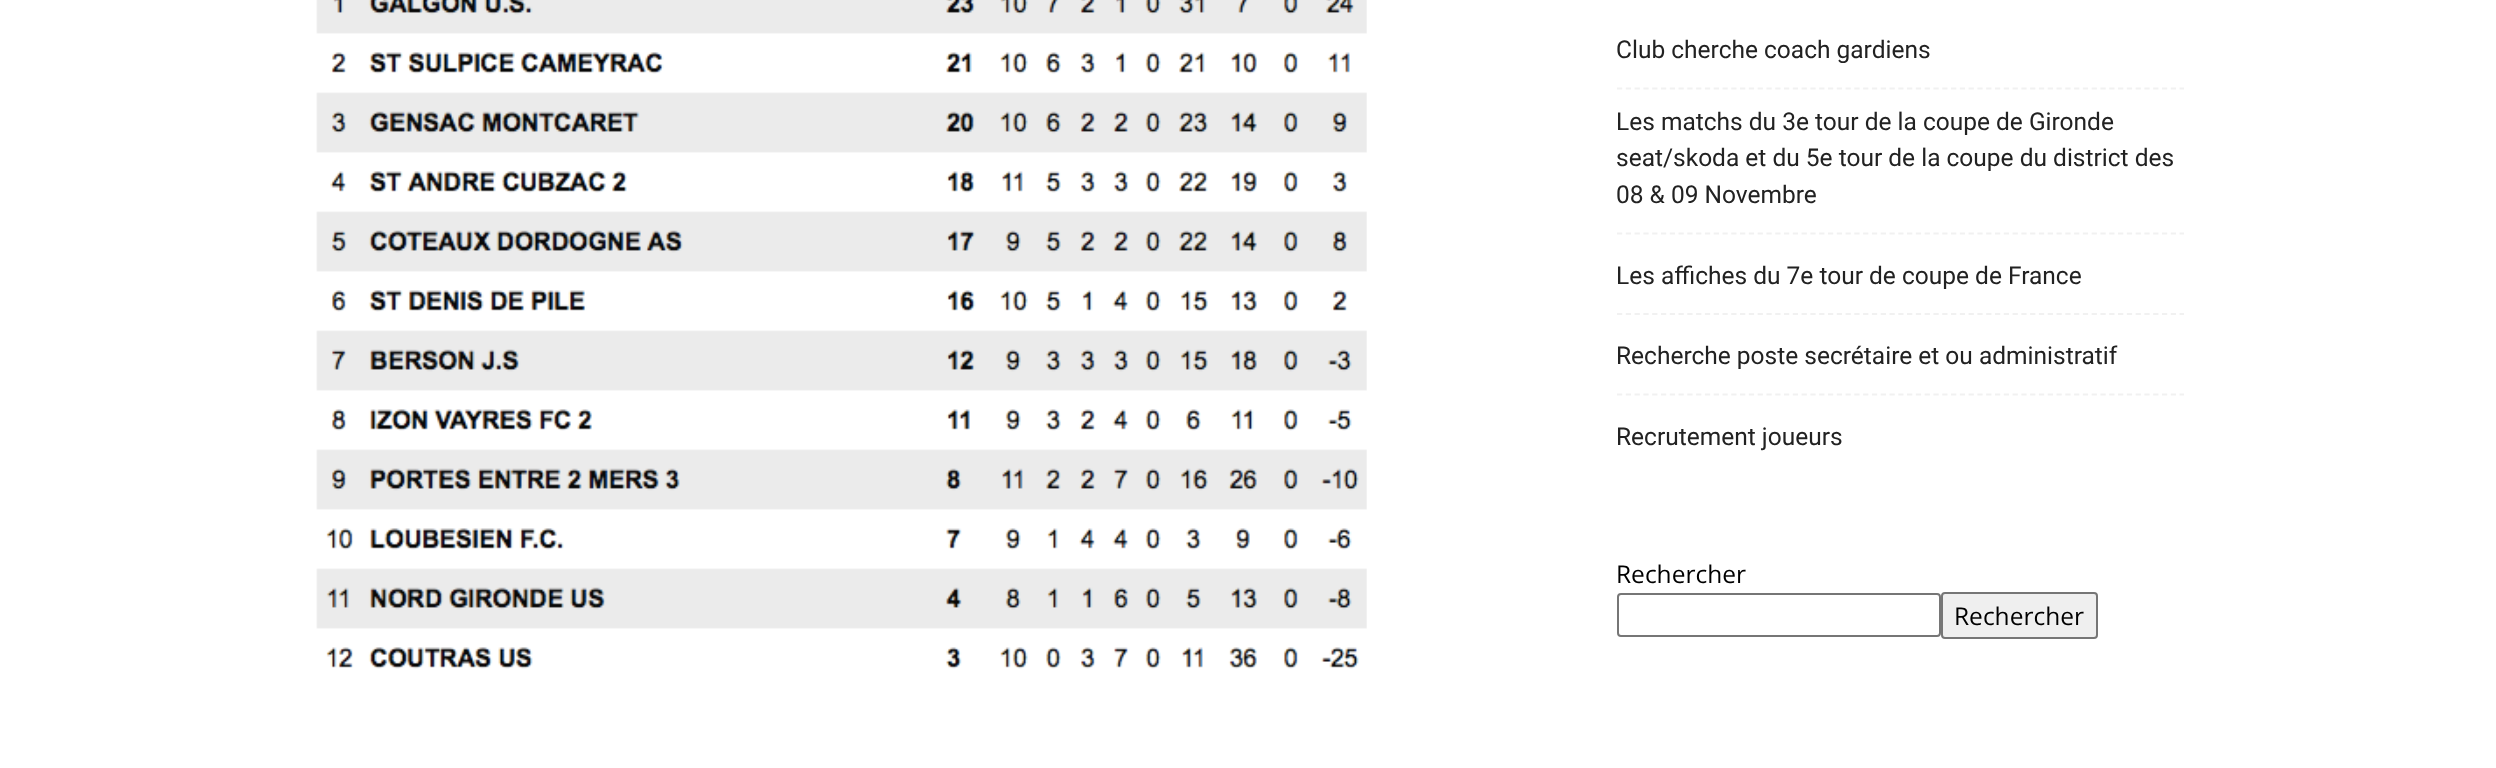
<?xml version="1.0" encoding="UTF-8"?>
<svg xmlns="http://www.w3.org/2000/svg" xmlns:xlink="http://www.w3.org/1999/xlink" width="2496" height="768">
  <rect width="100%" height="100%" fill="#ffffff" />
  <image x="316" y="0" width="1051" height="669" xlink:href="image1.png" />
  <path d="M 1617 88.5 h 567" fill="none" stroke="#f1f1f1" stroke-width="1.8" stroke-dasharray="5.25 3.54" />
  <path d="M 1617 233.5 h 567" fill="none" stroke="#f1f1f1" stroke-width="1.8" stroke-dasharray="5.25 3.54" />
  <path d="M 1617 314 h 567" fill="none" stroke="#f1f1f1" stroke-width="1.8" stroke-dasharray="5.25 3.54" />
  <path d="M 1617 394.5 h 567" fill="none" stroke="#f1f1f1" stroke-width="1.8" stroke-dasharray="5.25 3.54" />
  <rect x="1618" y="594" width="322" height="42" rx="3" fill="none" stroke="#767676" stroke-width="2" />
  <rect x="1942" y="593" width="155" height="45" rx="3" fill="#efefef" stroke="#767676" stroke-width="2" />
  <text x="1616" y="58" style="font-family: Roboto; font-size: 24.5px; fill: #222222">Club cherche coach gardiens</text>
  <text x="1616" y="130" style="font-family: Roboto; font-size: 24.5px; fill: #222222">Les matchs du 3e tour de la coupe de Gironde</text>
  <text x="1616" y="166" style="font-family: Roboto; font-size: 24.5px; fill: #222222">seat/skoda et du 5e tour de la coupe du district des</text>
  <text x="1616" y="203" style="font-family: Roboto; font-size: 24.5px; fill: #222222">08 &amp; 09 Novembre</text>
  <text x="1616" y="284" style="font-family: Roboto; font-size: 24.5px; fill: #222222">Les affiches du 7e tour de coupe de France</text>
  <text x="1616" y="364" style="font-family: Roboto; font-size: 24.5px; fill: #222222">Recherche poste secrétaire et ou administratif</text>
  <text x="1616" y="445" style="font-family: Roboto; font-size: 24.5px; fill: #222222">Recrutement joueurs</text>
  <text x="1616" y="583" style="font-family: Open Sans; font-size: 24.5px; fill: #000000">Rechercher</text>
  <text x="1954" y="625" style="font-family: Open Sans; font-size: 24.5px; fill: #000000">Rechercher</text>
</svg>
